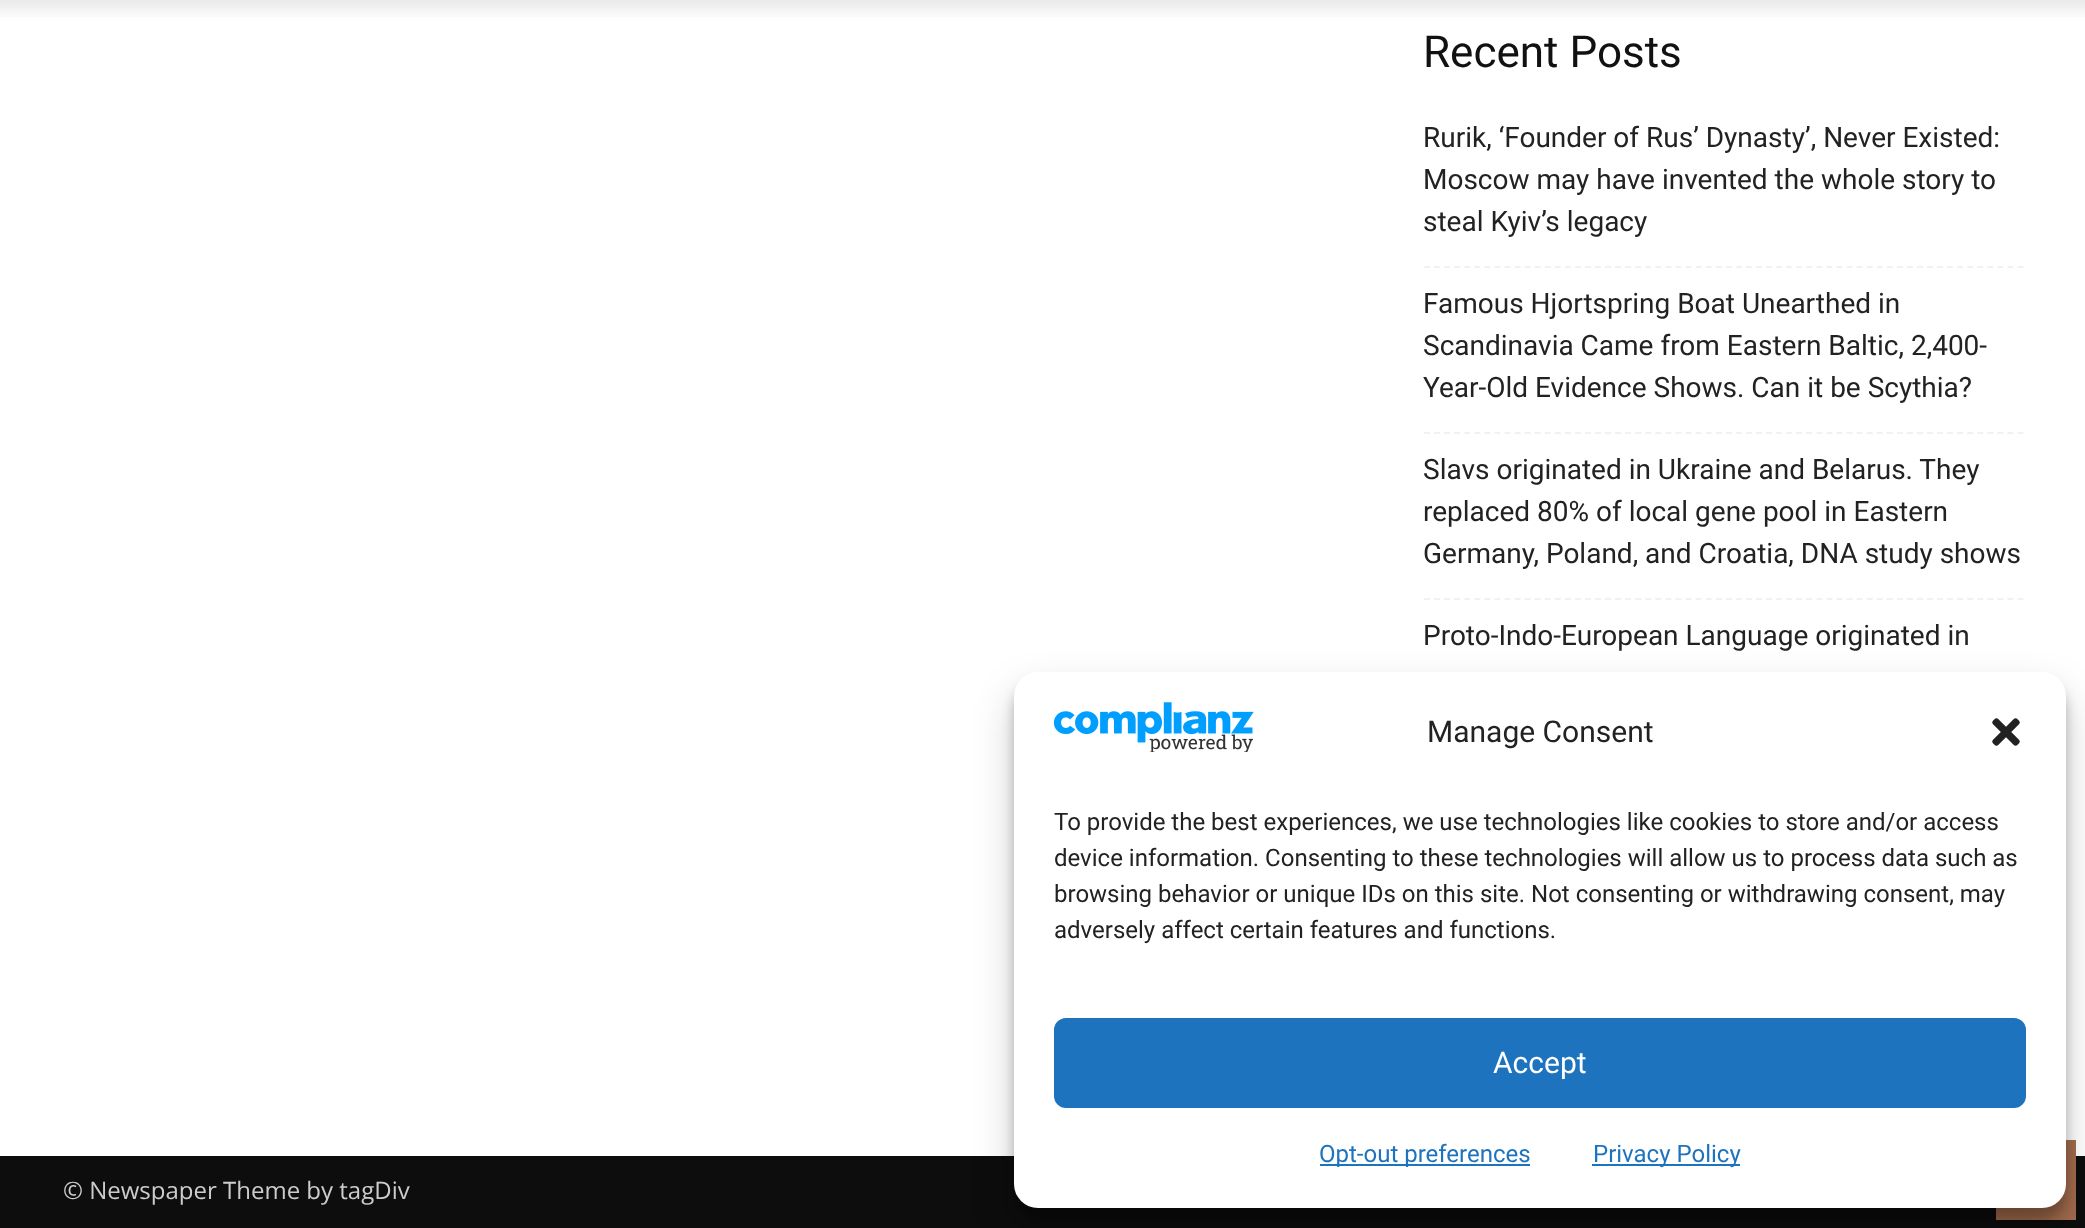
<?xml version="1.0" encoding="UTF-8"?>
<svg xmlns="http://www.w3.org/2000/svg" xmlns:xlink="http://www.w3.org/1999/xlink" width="2085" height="1228">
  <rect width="100%" height="100%" fill="#ffffff" />
  <image x="0" y="0" width="2085" height="17" xlink:href="image1.png" />
  <path d="M 1424 267 h 600" fill="none" stroke="#f1f1f1" stroke-width="2" stroke-dasharray="6 4.06" />
  <path d="M 1424 433 h 600" fill="none" stroke="#f1f1f1" stroke-width="2" stroke-dasharray="6 4.06" />
  <path d="M 1424 599 h 600" fill="none" stroke="#f1f1f1" stroke-width="2" stroke-dasharray="6 4.06" />
  <rect y="1156" width="2085" height="72" fill="#0d0d0d" />
  <rect x="1996" y="1140" width="80" height="80" fill="#a36c4d" />
  <rect x="1014" y="684" width="1052" height="536" rx="24" fill="#000000" fill-opacity="0.23" filter="blur(6px)" />
  <rect x="1014" y="692" width="1052" height="536" rx="24" fill="#000000" fill-opacity="0.19" filter="blur(20px)" />
  <rect x="1014" y="672" width="1052" height="536" rx="24" fill="#ffffff" />
  <image x="1054" y="702" width="200" height="50" xlink:href="image2.png" />
  <image x="1992" y="718" width="28" height="28" xlink:href="image3.png" />
  <rect x="1055" y="1019" width="970" height="88" rx="11" fill="#1e73be" stroke="#1e73be" stroke-width="2" />
  <rect x="1320" y="1164" width="210" height="2" fill="#1e73be" />
  <rect x="1592" y="1164" width="148" height="2" fill="#1e73be" />
  <text x="1423" y="67" style="font-family: Roboto; font-size: 44px; fill: #111111">Recent Posts</text>
  <text x="1423" y="147" style="font-family: Roboto; font-size: 28px; fill: #222222">Rurik, ‘Founder of Rus’ Dynasty’, Never Existed:</text>
  <text x="1423" y="189" style="font-family: Roboto; font-size: 28px; fill: #222222">Moscow may have invented the whole story to</text>
  <text x="1423" y="231" style="font-family: Roboto; font-size: 28px; fill: #222222">steal Kyiv’s legacy</text>
  <text x="1423" y="313" style="font-family: Roboto; font-size: 28px; fill: #222222">Famous Hjortspring Boat Unearthed in</text>
  <text x="1423" y="355" style="font-family: Roboto; font-size: 28px; fill: #222222">Scandinavia Came from Eastern Baltic, 2,400-</text>
  <text x="1423" y="397" style="font-family: Roboto; font-size: 28px; fill: #222222">Year-Old Evidence Shows. Can it be Scythia?</text>
  <text x="1423" y="479" style="font-family: Roboto; font-size: 28px; fill: #222222">Slavs originated in Ukraine and Belarus. They</text>
  <text x="1423" y="521" style="font-family: Roboto; font-size: 28px; fill: #222222">replaced 80% of local gene pool in Eastern</text>
  <text x="1423" y="563" style="font-family: Roboto; font-size: 28px; fill: #222222">Germany, Poland, and Croatia, DNA study shows</text>
  <text x="1423" y="645" style="font-family: Roboto; font-size: 28px; fill: #222222">Proto-Indo-European Language originated in</text>
  <text x="63" y="1199" style="font-family: Open Sans; font-size: 24px; fill: #cccccc">© Newspaper Theme by tagDiv</text>
  <text x="1427" y="742" style="font-family: Roboto; font-size: 30px; fill: #222222">Manage Consent</text>
  <text x="1054" y="830" style="font-family: Roboto; font-size: 24px; fill: #222222">To provide the best experiences, we use technologies like cookies to store and/or access</text>
  <text x="1054" y="866" style="font-family: Roboto; font-size: 24px; fill: #222222">device information. Consenting to these technologies will allow us to process data such as</text>
  <text x="1054" y="902" style="font-family: Roboto; font-size: 24px; fill: #222222">browsing behavior or unique IDs on this site. Not consenting or withdrawing consent, may</text>
  <text x="1054" y="938" style="font-family: Roboto; font-size: 24px; fill: #222222">adversely affect certain features and functions.</text>
  <text x="1493" y="1073" style="font-family: Roboto; font-size: 30px; fill: #ffffff">Accept</text>
  <text x="1319" y="1162" style="font-family: Roboto; font-size: 24px; fill: #1e73be">Opt-out preferences</text>
  <text x="1593" y="1162" style="font-family: Roboto; font-size: 24px; fill: #1e73be">Privacy Policy</text>
</svg>
